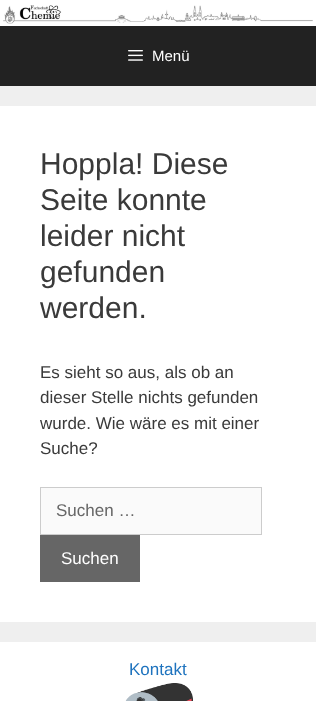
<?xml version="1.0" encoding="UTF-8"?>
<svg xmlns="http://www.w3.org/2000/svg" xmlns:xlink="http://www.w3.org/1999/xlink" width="316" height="701">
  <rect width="100%" height="100%" fill="#efefef" />
  <rect width="316" height="26" fill="#ffffff" />
  <image x="3" y="5" width="310" height="19" xlink:href="image1.png" />
  <rect y="26" width="316" height="60" fill="#222222" />
  <image x="128" y="50" width="15" height="11" xlink:href="image2.png" />
  <rect y="106" width="316" height="516" fill="#ffffff" />
  <rect x="40.5" y="487.5" width="221" height="47" fill="#fafafa" stroke="#cccccc" />
  <rect x="40" y="535" width="100" height="47" fill="#666666" />
  <rect y="642" width="316" height="59" fill="#ffffff" />
  <image x="125" y="683" width="68" height="18" xlink:href="image3.png" />
  <text x="152" y="61" style="font-family: Liberation Sans; font-size: 15px; fill: #ffffff">Menü</text>
  <text x="40" y="174" style="font-family: Liberation Sans; font-size: 30px; fill: #3a3a3a">Hoppla! Diese</text>
  <text x="40" y="210" style="font-family: Liberation Sans; font-size: 30px; fill: #3a3a3a">Seite konnte</text>
  <text x="40" y="246" style="font-family: Liberation Sans; font-size: 30px; fill: #3a3a3a">leider nicht</text>
  <text x="40" y="282" style="font-family: Liberation Sans; font-size: 30px; fill: #3a3a3a">gefunden</text>
  <text x="40" y="318" style="font-family: Liberation Sans; font-size: 30px; fill: #3a3a3a">werden.</text>
  <text x="40" y="378" style="font-family: Liberation Sans; font-size: 17px; fill: #3a3a3a">Es sieht so aus, als ob an</text>
  <text x="40" y="403" style="font-family: Liberation Sans; font-size: 17px; fill: #3a3a3a">dieser Stelle nichts gefunden</text>
  <text x="40" y="429" style="font-family: Liberation Sans; font-size: 17px; fill: #3a3a3a">wurde. Wie wäre es mit einer</text>
  <text x="40" y="454" style="font-family: Liberation Sans; font-size: 17px; fill: #3a3a3a">Suche?</text>
  <text x="56" y="516" style="font-family: Liberation Sans; font-size: 17px; fill: #666666">Suchen …</text>
  <text x="61" y="564" style="font-family: Liberation Sans; font-size: 17px; fill: #ffffff">Suchen</text>
  <text x="129" y="675" style="font-family: Liberation Sans; font-size: 17px; fill: #1e73be">Kontakt</text>
</svg>
